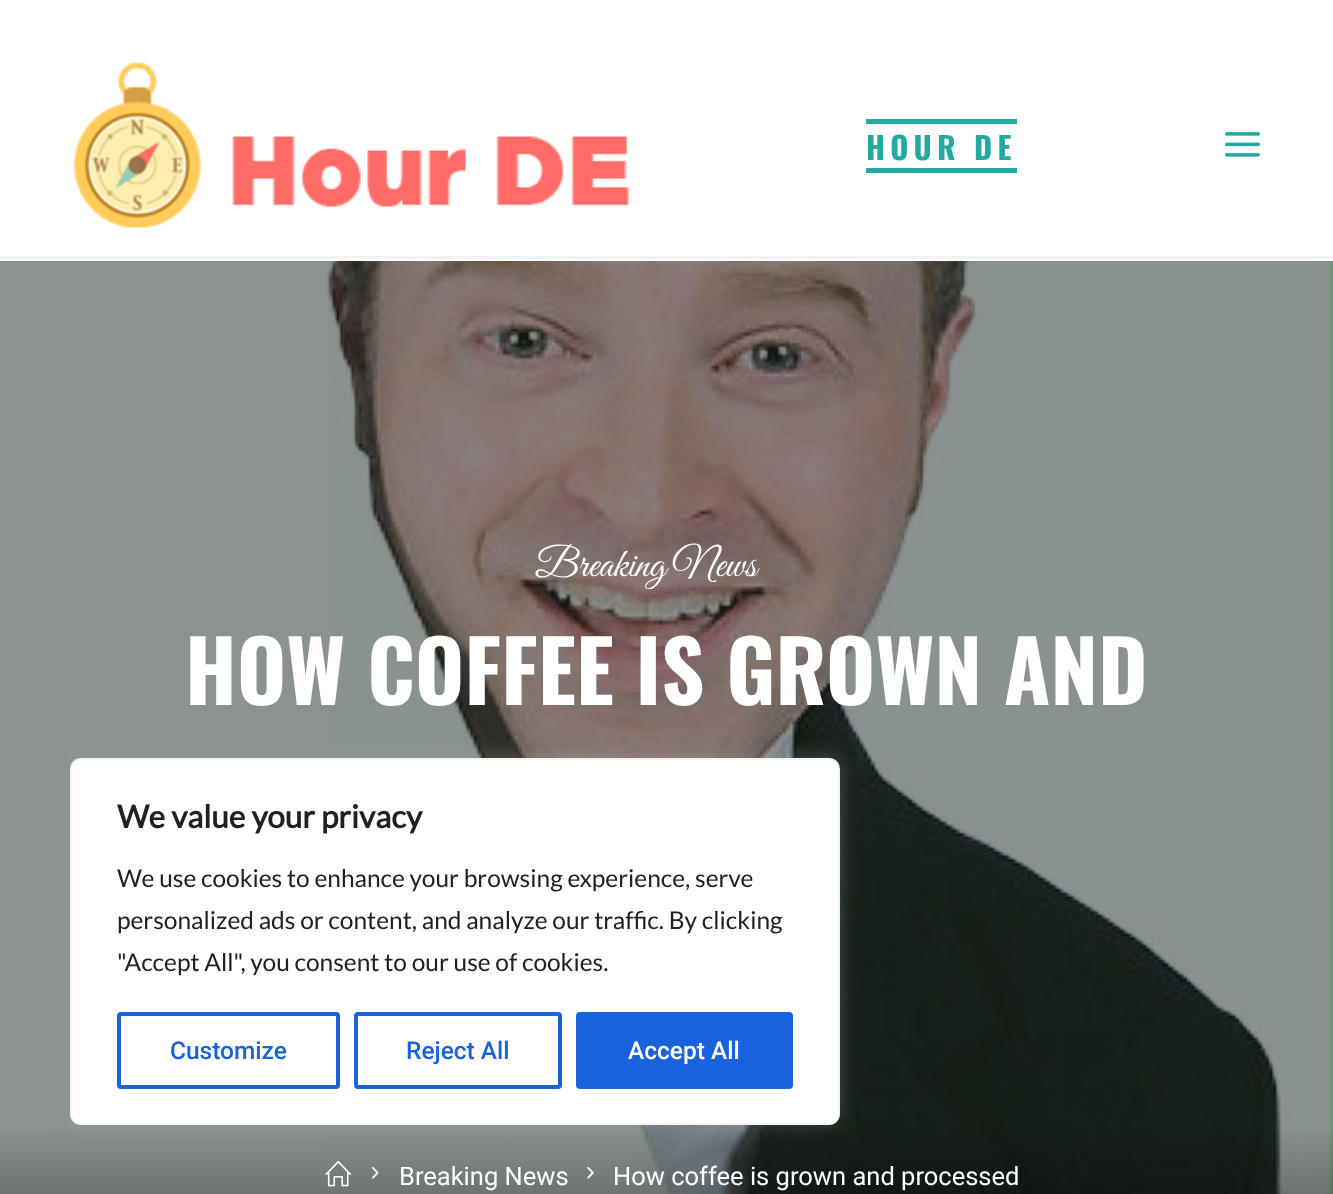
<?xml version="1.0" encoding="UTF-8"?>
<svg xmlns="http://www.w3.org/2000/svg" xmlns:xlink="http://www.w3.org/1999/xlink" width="1333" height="1194">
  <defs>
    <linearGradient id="g1" gradientUnits="userSpaceOnUse" x1="667" y1="1124" x2="667" y2="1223"><stop offset="0" stop-color="#000000" stop-opacity="0" /><stop offset="1" stop-color="#000000" stop-opacity="0.3" /></linearGradient>
  </defs>
  <rect width="100%" height="100%" fill="#8b9290" />
  <rect width="1333" height="261" fill="#ffffff" />
  <image x="73" y="62" width="556" height="166" xlink:href="image1.png" />
  <rect x="866" y="119" width="151" height="5" fill="#22aaa1" />
  <rect x="866" y="168" width="151" height="5" fill="#22aaa1" />
  <image x="1225" y="132" width="35" height="25" xlink:href="image2.png" />
  <rect y="256" width="1333" height="3" fill="#f2f2f2" />
  <image x="327" y="261" width="1006" height="933" xlink:href="image3.png" />
  <rect y="1131" width="1333" height="63" fill="url(#g1)" />
  <image x="325" y="1160" width="26" height="27" xlink:href="image4.png" />
  <image x="372" y="1167" width="7" height="12" xlink:href="image5.png" />
  <image x="587" y="1167" width="7" height="12" xlink:href="image6.png" />
  <rect x="70" y="756" width="770" height="368" rx="11" fill="#acabab" fill-opacity="0.3" filter="blur(9px)" />
  <rect x="71" y="759" width="768" height="365" rx="10" fill="#ffffff" stroke="#f4f4f4" stroke-width="2" />
  <rect x="119" y="1014" width="219" height="73" rx="2" fill="none" stroke="#1863dc" stroke-width="4" />
  <rect x="356" y="1014" width="204" height="73" rx="2" fill="none" stroke="#1863dc" stroke-width="4" />
  <rect x="578" y="1014" width="213" height="73" rx="2" fill="#1863dc" stroke="#1863dc" stroke-width="4" />
  <text x="866" y="160" style="font-family: Oswald; font-size: 31px; font-weight: bold; letter-spacing: 5.25px; fill: #22aaa1">HOUR DE</text>
  <text x="535" y="576" style="font-family: Great Vibes; font-size: 41px; fill: #ffffff">Breaking News</text>
  <text x="185" y="705" style="font-family: Oswald; font-size: 84.75px; font-weight: bold; fill: #ffffff">HOW COFFEE IS GROWN AND</text>
  <text x="399" y="1185" style="font-family: Roboto; font-size: 25.5px; fill: #ffffff">Breaking News</text>
  <text x="613" y="1185" style="font-family: Roboto; font-size: 25.5px; fill: #ffffff">How coffee is grown and processed</text>
  <text x="117" y="828" style="font-family: Lato; font-size: 31.5px; font-weight: bold; fill: #212121">We value your privacy</text>
  <text x="117" y="887" style="font-family: Lato; font-size: 24.5px; fill: #212121">We use cookies to enhance your browsing experience, serve</text>
  <text x="117" y="929" style="font-family: Lato; font-size: 24.5px; fill: #212121">personalized ads or content, and analyze our traffic. By clicking</text>
  <text x="117" y="971" style="font-family: Lato; font-size: 24.5px; fill: #212121">"Accept All", you consent to our use of cookies.</text>
  <text x="170" y="1059" style="font-family: Roboto; font-size: 24.5px; font-weight: 500; fill: #1863dc">Customize</text>
  <text x="406" y="1059" style="font-family: Roboto; font-size: 24.5px; font-weight: 500; fill: #1863dc">Reject All</text>
  <text x="628" y="1059" style="font-family: Roboto; font-size: 24.5px; font-weight: 500; fill: #ffffff">Accept All</text>
</svg>
